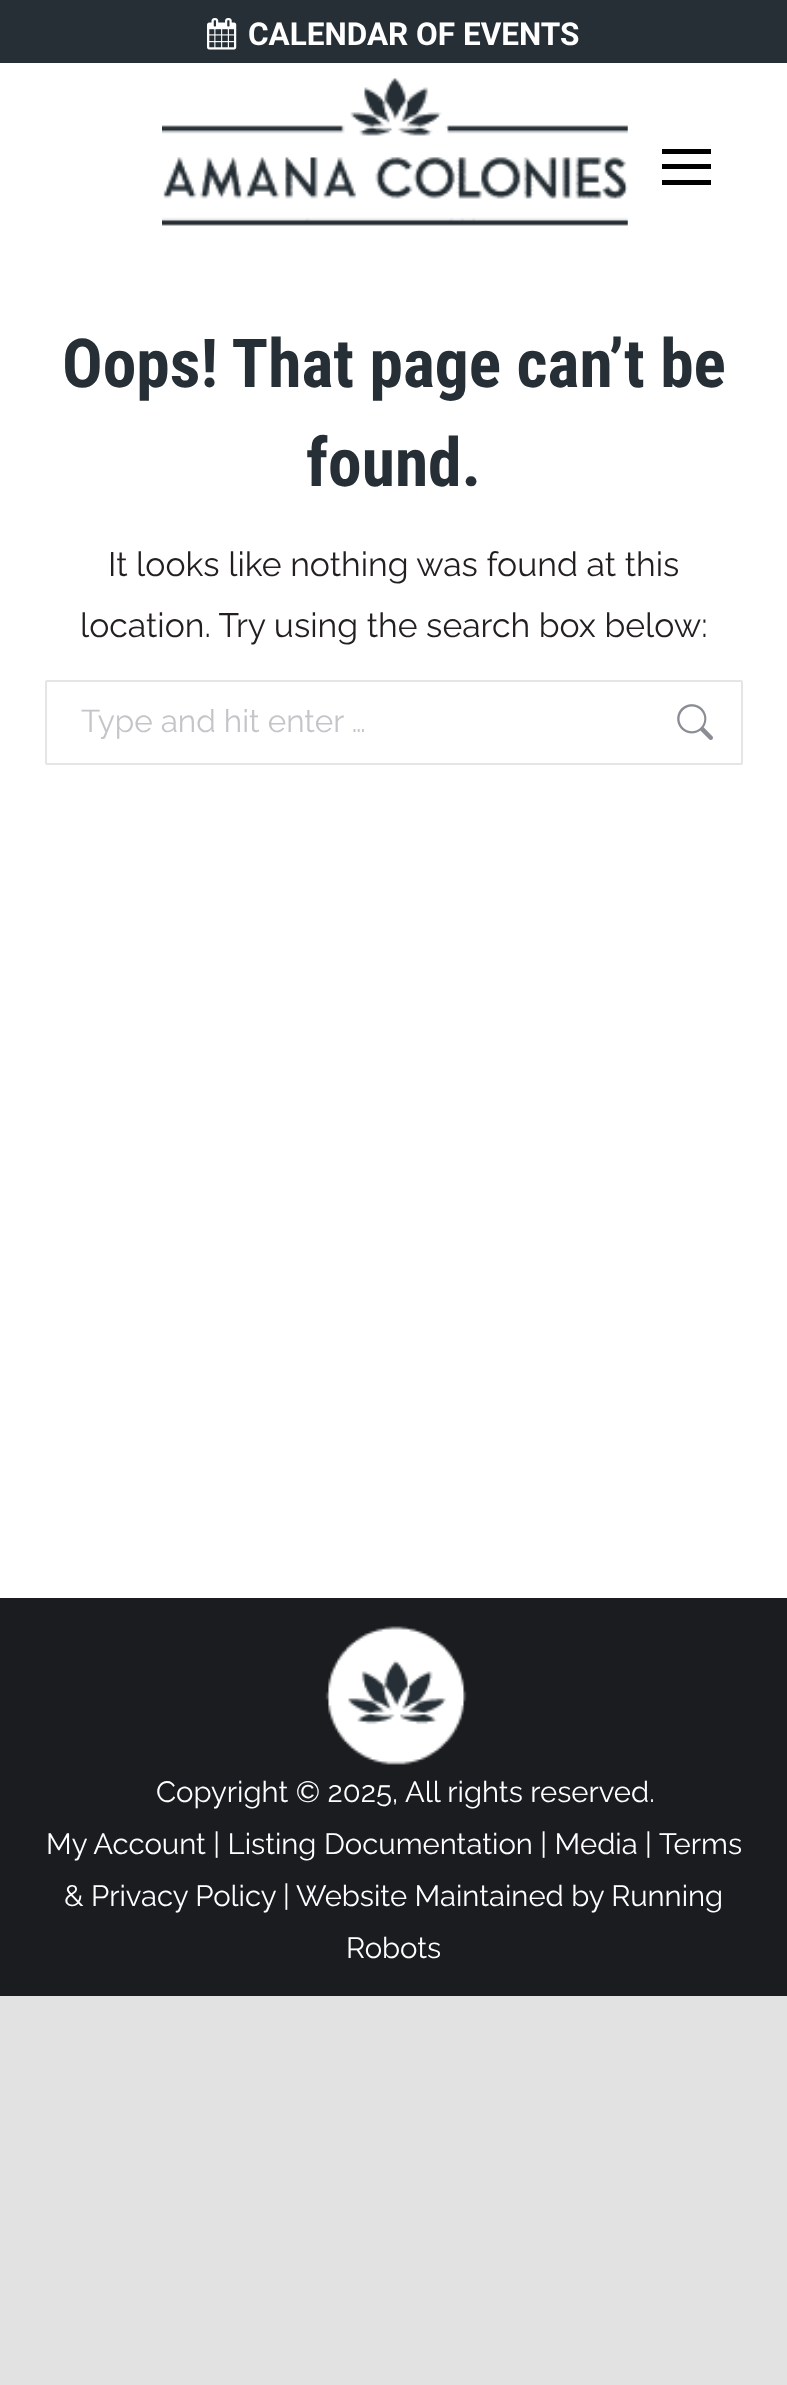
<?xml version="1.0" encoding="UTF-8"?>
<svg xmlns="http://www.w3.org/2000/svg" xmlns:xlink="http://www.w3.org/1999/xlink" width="787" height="2385">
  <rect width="100%" height="100%" fill="#e2e2e2" />
  <rect y="63" width="787" height="1535" fill="#ffffff" />
  <rect width="787" height="63" fill="#252f35" />
  <image x="207" y="18" width="30" height="32" xlink:href="image1.png" />
  <image x="162" y="78" width="466" height="148" xlink:href="image2.png" />
  <rect x="662" y="149" width="49" height="5" fill="#000000" />
  <rect x="662" y="164" width="49" height="5" fill="#000000" />
  <rect x="662" y="180" width="49" height="5" fill="#000000" />
  <rect x="46" y="681" width="696" height="83" rx="1" fill="none" stroke="#e5e5e5" stroke-width="2" />
  <image x="677" y="704" width="36" height="36" xlink:href="image3.png" />
  <rect y="1598" width="787" height="398" fill="#1a1c20" />
  <image x="325" y="1626" width="142" height="139" xlink:href="image4.png" />
  <text x="248" y="45" style="font-family: Roboto; font-size: 31.5px; font-weight: bold; fill: #ffffff">CALENDAR OF EVENTS</text>
  <text x="62" y="387" style="font-family: Roboto Condensed; font-size: 67.5px; font-weight: bold; fill: #252f35">Oops! That page can’t be</text>
  <text x="306" y="486" style="font-family: Roboto Condensed; font-size: 67.5px; font-weight: bold; fill: #252f35">found.</text>
  <text x="108" y="576" style="font-family: Raleway; font-size: 33.75px; fill: #231f20">It looks like nothing was found at this</text>
  <text x="80" y="637" style="font-family: Raleway; font-size: 33.75px; fill: #231f20">location. Try using the search box below:</text>
  <text x="81" y="732" style="font-family: Raleway; font-size: 31.5px; fill: #c4c5c9">Type and hit enter …</text>
  <text x="156" y="1802" style="font-family: Raleway; font-size: 29.25px; fill: #ffffff">Copyright © 2025, All rights reserved.</text>
  <text x="46" y="1854" style="font-family: Raleway; font-size: 29.25px; fill: #ffffff">My Account | Listing Documentation | Media</text>
  <text x="645" y="1854" style="font-family: Raleway; font-size: 29.25px; fill: #ffffff">|</text>
  <text x="659" y="1854" style="font-family: Raleway; font-size: 29.25px; fill: #ffffff">Terms</text>
  <text x="64" y="1906" style="font-family: Raleway; font-size: 29.25px; fill: #ffffff">&amp; Privacy Policy</text>
  <text x="283" y="1906" style="font-family: Raleway; font-size: 29.25px; fill: #ffffff">|</text>
  <text x="296" y="1906" style="font-family: Raleway; font-size: 29.25px; fill: #ffffff">Website Maintained by Running</text>
  <text x="346" y="1958" style="font-family: Raleway; font-size: 29.25px; fill: #ffffff">Robots</text>
</svg>
